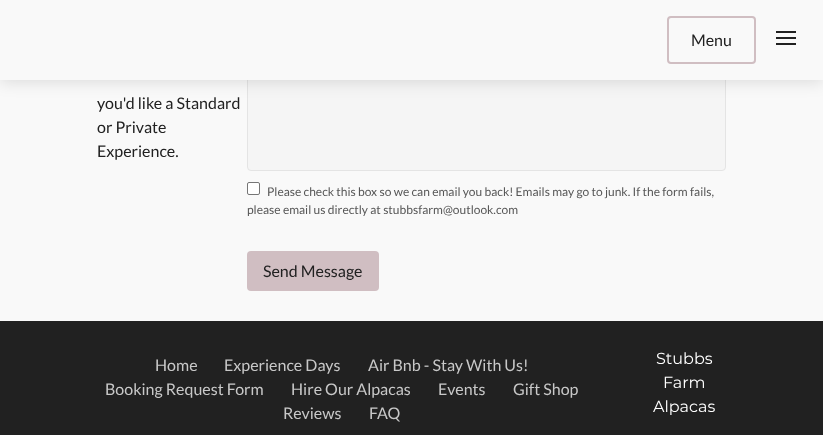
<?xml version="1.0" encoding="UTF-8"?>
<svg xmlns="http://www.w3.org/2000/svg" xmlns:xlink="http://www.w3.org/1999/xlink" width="823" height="435">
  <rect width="100%" height="100%" fill="#f9f9f9" />
  <rect x="247.5" y="-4.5" width="478" height="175" rx="3.5" fill="#f5f5f5" stroke="#e4e4e4" />
  <rect y="2" width="823" height="80" fill="#000000" fill-opacity="0.12" filter="blur(8px)" />
  <rect width="823" height="80" fill="#f9f9f9" />
  <rect x="668" y="17" width="87" height="46" rx="3" fill="none" stroke="#d0bec2" stroke-width="2" />
  <rect x="776" y="31" width="20" height="2" fill="#212121" />
  <rect x="776" y="37" width="20" height="2" fill="#212121" />
  <rect x="776" y="43" width="20" height="2" fill="#212121" />
  <rect x="247.5" y="182.5" width="12" height="12" rx="1.5" fill="#ffffff" stroke="#767676" />
  <rect x="247" y="251" width="132" height="40" rx="4" fill="#d0bec2" />
  <rect y="321" width="823" height="114" fill="#212121" />
  <text x="691" y="46" style="font-family: Lato; font-size: 16px; fill: #212121">Menu</text>
  <text x="97" y="109" style="font-family: Lato; font-size: 16px; fill: #212121">you'd like a Standard</text>
  <text x="97" y="133" style="font-family: Lato; font-size: 16px; fill: #212121">or Private</text>
  <text x="97" y="157" style="font-family: Lato; font-size: 16px; fill: #212121">Experience.</text>
  <text x="267" y="196" style="font-family: Lato; font-size: 12px; fill: #575757">Please check this box so we can email you back! Emails may go to junk. If the form fails,</text>
  <text x="247" y="214" style="font-family: Lato; font-size: 12px; fill: #575757">please email us directly at stubbsfarm@outlook.com</text>
  <text x="263" y="277" style="font-family: Lato; font-size: 16px; fill: #212121">Send Message</text>
  <text x="155" y="371" style="font-family: Lato; font-size: 16px; fill: #c8c8c8">Home</text>
  <text x="224" y="371" style="font-family: Lato; font-size: 16px; fill: #c8c8c8">Experience Days</text>
  <text x="368" y="371" style="font-family: Lato; font-size: 16px; fill: #c8c8c8">Air Bnb - Stay With Us!</text>
  <text x="105" y="395" style="font-family: Lato; font-size: 16px; fill: #c8c8c8">Booking Request Form</text>
  <text x="291" y="395" style="font-family: Lato; font-size: 16px; fill: #c8c8c8">Hire Our Alpacas</text>
  <text x="438" y="395" style="font-family: Lato; font-size: 16px; fill: #c8c8c8">Events</text>
  <text x="513" y="395" style="font-family: Lato; font-size: 16px; fill: #c8c8c8">Gift Shop</text>
  <text x="283" y="419" style="font-family: Lato; font-size: 16px; fill: #c8c8c8">Reviews</text>
  <text x="369" y="419" style="font-family: Lato; font-size: 16px; fill: #c8c8c8">FAQ</text>
  <text x="656" y="364" style="font-family: Montserrat; font-size: 16px; fill: #ffffff">Stubbs</text>
  <text x="663" y="388" style="font-family: Montserrat; font-size: 16px; fill: #ffffff">Farm</text>
  <text x="653" y="412" style="font-family: Montserrat; font-size: 16px; fill: #ffffff">Alpacas</text>
</svg>
